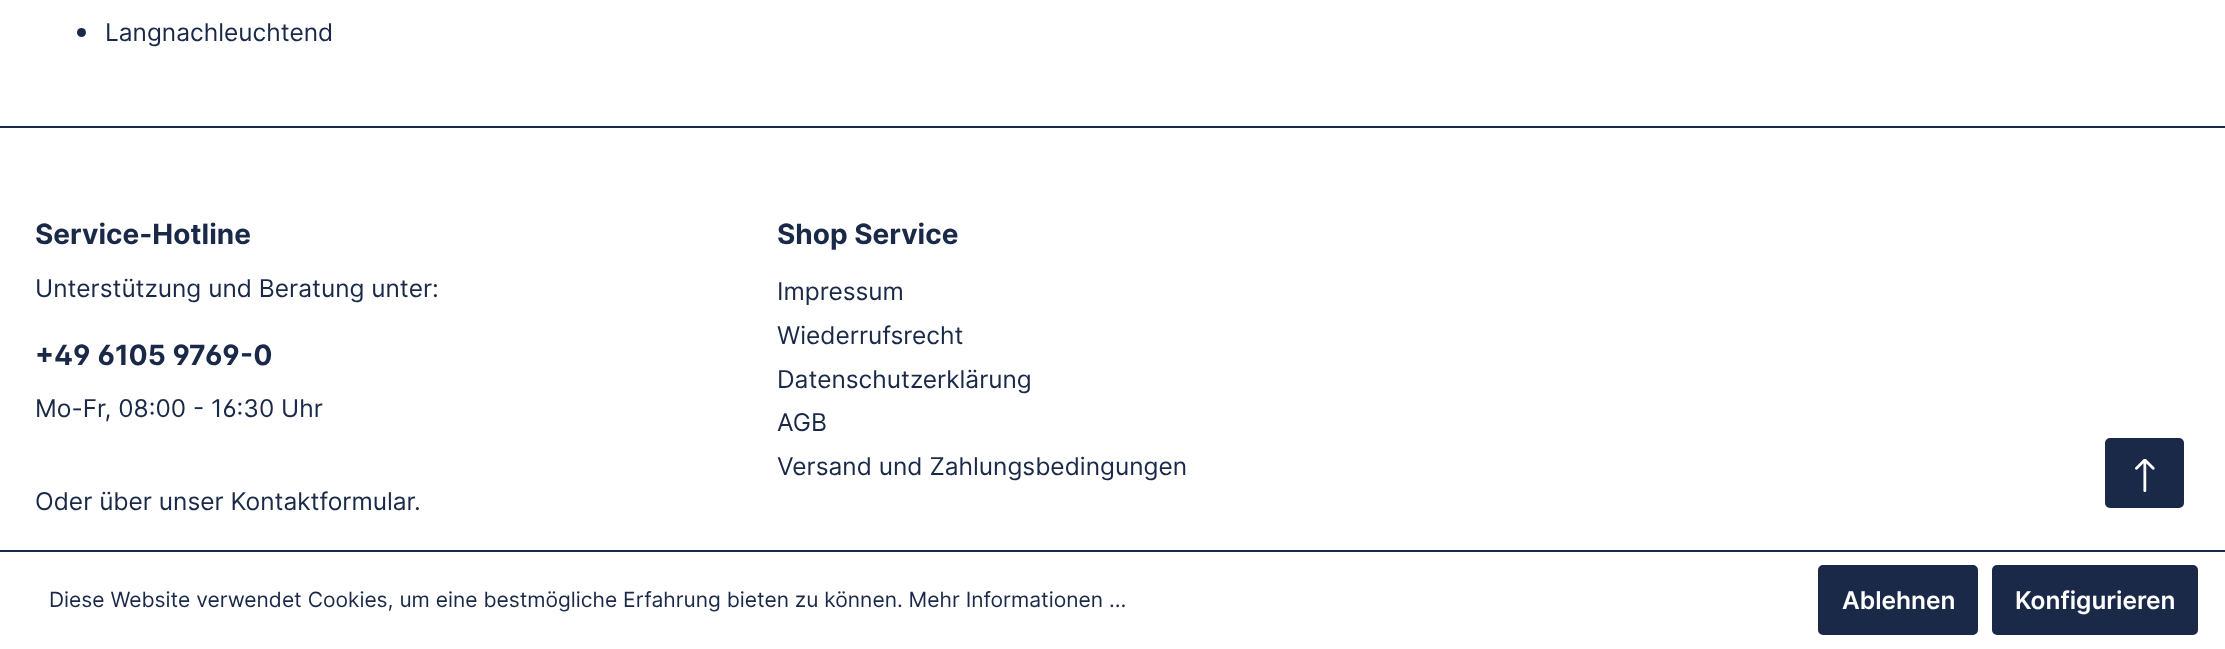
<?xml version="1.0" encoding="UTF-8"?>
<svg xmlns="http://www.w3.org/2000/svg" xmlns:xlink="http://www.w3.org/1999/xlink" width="2225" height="649">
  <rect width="100%" height="100%" fill="#ffffff" />
  <circle cx="81.5" cy="32.5" r="4.5" fill="#1a2948" />
  <rect y="126" width="2225" height="2" fill="#1a2948" />
  <rect x="2106" y="439" width="77" height="68" rx="4" fill="#1a2948" stroke="#1a2948" stroke-width="2" />
  <image x="2135" y="459" width="20" height="33" xlink:href="image1.png" />
  <rect y="550" width="2225" height="2" fill="#1a2948" />
  <rect x="1819" y="566" width="158" height="68" rx="4" fill="#1a2948" stroke="#1a2948" stroke-width="2" />
  <rect x="1993" y="566" width="204" height="68" rx="4" fill="#1a2948" stroke="#1a2948" stroke-width="2" />
  <text x="105" y="41" style="font-family: Inter; font-size: 24.5px; fill: #1a2948">Langnachleuchtend</text>
  <text x="35" y="244" style="font-family: Inter; font-size: 28px; font-weight: bold; fill: #1a2948">Service-Hotline</text>
  <text x="35" y="297" style="font-family: Inter; font-size: 24.5px; fill: #1a2948">Unterstützung und Beratung unter:</text>
  <text x="35" y="365" style="font-family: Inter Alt; font-size: 28px; font-weight: bold; fill: #1a2948">+49 6105 9769-0</text>
  <text x="35" y="417" style="font-family: Inter Alt; font-size: 24.5px; fill: #1a2948">Mo-Fr, 08:00 - 16:30 Uhr</text>
  <text x="35" y="510" style="font-family: Inter; font-size: 24.5px; fill: #1a2948">Oder über unser Kontaktformular</text>
  <text x="414" y="510" style="font-family: Inter; font-size: 24.5px; fill: #1a2948">.</text>
  <text x="777" y="244" style="font-family: Inter; font-size: 28px; font-weight: bold; fill: #1a2948">Shop Service</text>
  <text x="777" y="300" style="font-family: Inter; font-size: 24.5px; fill: #1a2948">Impressum</text>
  <text x="777" y="344" style="font-family: Inter; font-size: 24.5px; fill: #1a2948">Wiederrufsrecht</text>
  <text x="777" y="388" style="font-family: Inter; font-size: 24.5px; fill: #1a2948">Datenschutzerklärung</text>
  <text x="777" y="431" style="font-family: Inter; font-size: 24.5px; fill: #1a2948">AGB</text>
  <text x="777" y="475" style="font-family: Inter; font-size: 24.5px; fill: #1a2948">Versand und Zahlungsbedingungen</text>
  <text x="49" y="607" style="font-family: Inter; font-size: 21px; fill: #1a2948">Diese Website verwendet Cookies, um eine bestmögliche Erfahrung bieten zu können. Mehr Informationen ...</text>
  <text x="1842" y="609" style="font-family: Inter; font-size: 24.5px; font-weight: 600; fill: #ffffff">Ablehnen</text>
  <text x="2015" y="609" style="font-family: Inter; font-size: 24.5px; font-weight: 600; fill: #ffffff">Konfigurieren</text>
</svg>
